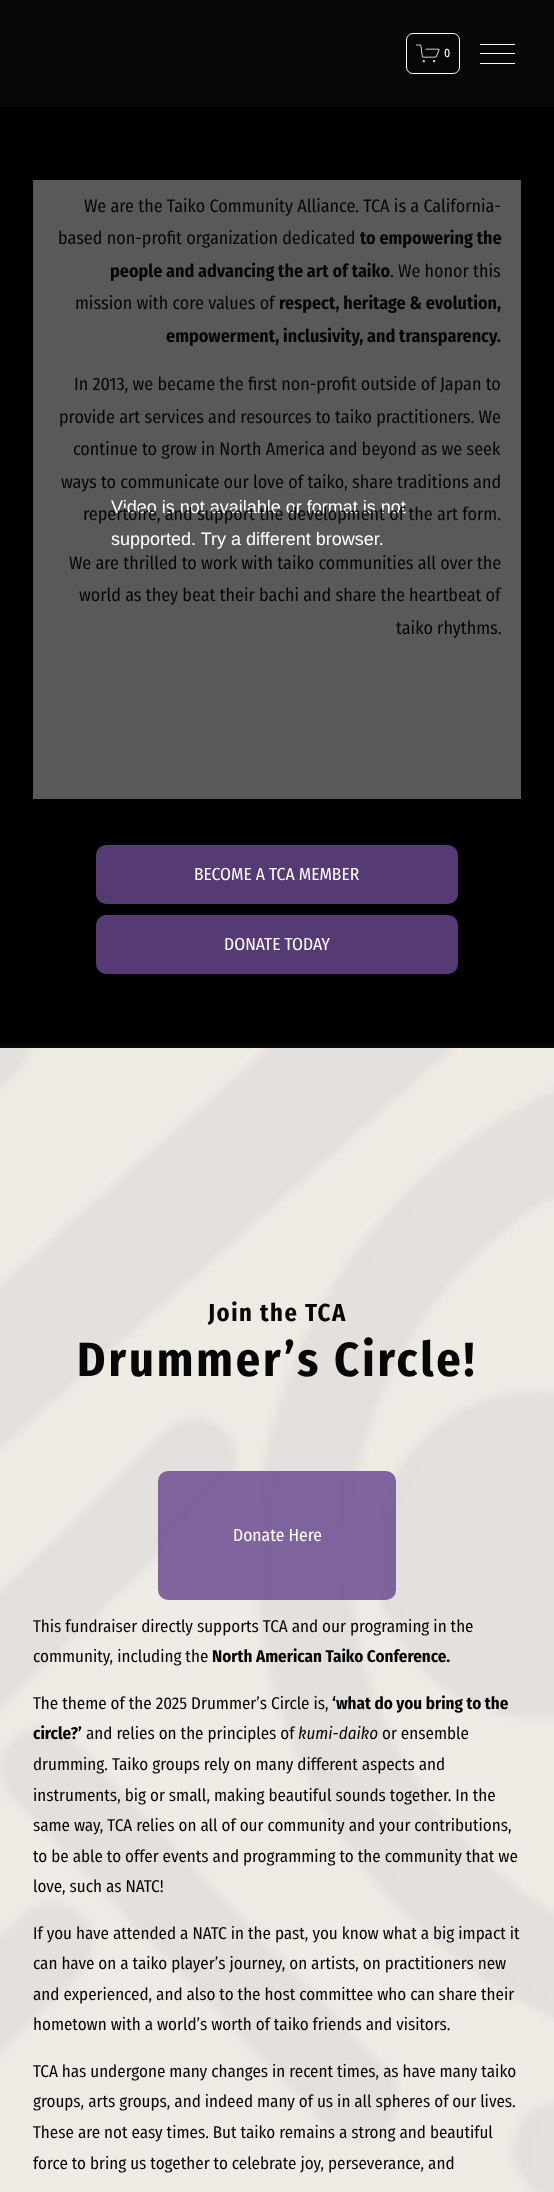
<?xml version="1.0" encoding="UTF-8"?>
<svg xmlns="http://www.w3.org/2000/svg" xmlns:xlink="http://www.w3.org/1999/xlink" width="554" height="2192">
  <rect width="100%" height="100%" fill="#ffffff" />
  <rect width="554" height="107" fill="#070707" />
  <rect x="406.5" y="33.5" width="53" height="40" rx="6.5" fill="none" stroke="#ffffff" />
  <image x="416" y="44" width="24" height="19" xlink:href="image1.png" />
  <rect x="480" y="44" width="35" height="1" fill="#ffffff" />
  <rect x="480" y="53" width="35" height="1" fill="#ffffff" />
  <rect x="480" y="63" width="35" height="1" fill="#ffffff" />
  <rect y="107" width="554" height="937" fill="#000000" />
  <rect x="96" y="845" width="362" height="59" rx="10" fill="#553a74" />
  <rect x="96" y="915" width="362" height="59" rx="10" fill="#553a74" />
  <rect x="33" y="180" width="488" height="619" fill="#595959" />
  <path d="M -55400 523 v 1046 m 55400 -523 h 554" fill="none" stroke="#070707" stroke-width="4" stroke-linecap="square" />
  <image x="0" y="1048" width="554" height="1144" xlink:href="image2.png" />
  <rect x="158" y="1471" width="238" height="129" rx="10" fill="#68478d" fill-opacity="0.82" />
  <text x="444" y="57" style="font-family: Fira Sans Condensed; font-size: 12px; fill: #ffffff">0</text>
  <text x="84" y="212" style="font-family: Fira Sans Condensed; font-size: 18.05px; fill: #070707">We are the Taiko Community Alliance. TCA is a California-</text>
  <text x="58" y="244" style="font-family: Fira Sans Condensed; font-size: 18.05px; fill: #070707">based non-profit organization dedicated</text>
  <text x="360" y="244" style="font-family: Fira Sans Condensed; font-size: 18.05px; font-weight: bold; fill: #070707">to empowering the</text>
  <text x="110" y="277" style="font-family: Fira Sans Condensed; font-size: 18.05px; font-weight: bold; fill: #070707">people and advancing the art of taiko</text>
  <text x="390" y="277" style="font-family: Fira Sans Condensed; font-size: 18.05px; fill: #070707">. We honor this</text>
  <text x="75" y="309" style="font-family: Fira Sans Condensed; font-size: 18.05px; fill: #070707">mission with core values of</text>
  <text x="279" y="309" style="font-family: Fira Sans Condensed; font-size: 18.05px; font-weight: bold; fill: #070707">respect, heritage &amp; evolution,</text>
  <text x="166" y="342" style="font-family: Fira Sans Condensed; font-size: 18.05px; font-weight: bold; fill: #070707">empowerment, inclusivity, and transparency.</text>
  <text x="74" y="390" style="font-family: Fira Sans Condensed; font-size: 18.05px; fill: #070707">In 2013, we became the first non-profit outside of Japan to</text>
  <text x="59" y="423" style="font-family: Fira Sans Condensed; font-size: 18.05px; fill: #070707">provide art services and resources to taiko practitioners. We</text>
  <text x="73" y="455" style="font-family: Fira Sans Condensed; font-size: 18.05px; fill: #070707">continue to grow in North America and beyond as we seek</text>
  <text x="61" y="488" style="font-family: Fira Sans Condensed; font-size: 18.05px; fill: #070707">ways to communicate our love of taiko, share traditions and</text>
  <text x="69" y="569" style="font-family: Fira Sans Condensed; font-size: 18.05px; fill: #070707">We are thrilled to work with taiko communities all over the</text>
  <text x="79" y="601" style="font-family: Fira Sans Condensed; font-size: 18.05px; fill: #070707">world as they beat their bachi and share the heartbeat of</text>
  <text x="396" y="634" style="font-family: Fira Sans Condensed; font-size: 18.05px; fill: #070707">taiko rhythms.</text>
  <text x="194" y="880" style="font-family: Fira Sans Condensed; font-size: 17.5px; fill: #ffffff">BECOME A TCA MEMBER</text>
  <text x="224" y="950" style="font-family: Fira Sans Condensed; font-size: 17.5px; fill: #ffffff">DONATE TODAY</text>
  <text x="111" y="513" style="font-family: Liberation Sans; font-size: 18px; fill: #ffffff">Video is not available or format is not</text>
  <text x="83" y="520" style="font-family: Fira Sans Condensed; font-size: 18.05px; fill: #070707">repertoire, and support the development of the art form.</text>
  <text x="111" y="545" style="font-family: Liberation Sans; font-size: 18px; fill: #ffffff">supported. Try a different browser.</text>
  <text x="208" y="1321" style="font-family: Fira Sans Condensed; font-size: 24.5px; font-weight: bold; letter-spacing: 1.5px; fill: #070707">Join the TCA</text>
  <text x="77" y="1376" style="font-family: Fira Sans Condensed; font-size: 48px; font-weight: bold; letter-spacing: 2.9px; fill: #070707">Drummer’s Circle!</text>
  <text x="233" y="1541" style="font-family: Fira Sans Condensed; font-size: 17.5px; fill: #ffffff">Donate Here</text>
  <text x="33" y="1632" style="font-family: Fira Sans Condensed; font-size: 17px; fill: #070707">This fundraiser directly supports TCA and our programing in the</text>
  <text x="33" y="1662" style="font-family: Fira Sans Condensed; font-size: 17px; fill: #070707">community, including the</text>
  <text x="212" y="1662" style="font-family: Fira Sans Condensed; font-size: 17px; font-weight: bold; fill: #070707">North American Taiko Conference.</text>
  <text x="33" y="1709" style="font-family: Fira Sans Condensed; font-size: 17px; fill: #070707">The theme of the 2025 Drummer’s Circle is,</text>
  <text x="332" y="1709" style="font-family: Fira Sans Condensed; font-size: 17px; font-weight: bold; fill: #070707">‘what do you bring to the</text>
  <text x="33" y="1739" style="font-family: Fira Sans Condensed; font-size: 17px; font-weight: bold; fill: #070707">circle?’</text>
  <text x="86" y="1739" style="font-family: Fira Sans Condensed; font-size: 17px; fill: #070707">and relies on the principles of</text>
  <text x="298" y="1739" style="font-family: Fira Sans Condensed; font-size: 17px; font-style: italic; fill: #070707">kumi-daiko</text>
  <text x="382" y="1739" style="font-family: Fira Sans Condensed; font-size: 17px; fill: #070707">or ensemble</text>
  <text x="33" y="1770" style="font-family: Fira Sans Condensed; font-size: 17px; fill: #070707">drumming. Taiko groups rely on many different aspects and</text>
  <text x="33" y="1801" style="font-family: Fira Sans Condensed; font-size: 17px; fill: #070707">instruments, big or small, making beautiful sounds together. In the</text>
  <text x="33" y="1831" style="font-family: Fira Sans Condensed; font-size: 17px; fill: #070707">same way, TCA relies on all of our community and your contributions,</text>
  <text x="33" y="1862" style="font-family: Fira Sans Condensed; font-size: 17px; fill: #070707">to be able to offer events and programming to the community that we</text>
  <text x="33" y="1892" style="font-family: Fira Sans Condensed; font-size: 17px; fill: #070707">love, such as NATC!</text>
  <text x="33" y="1939" style="font-family: Fira Sans Condensed; font-size: 17px; fill: #070707">If you have attended a NATC in the past, you know what a big impact it</text>
  <text x="33" y="1969" style="font-family: Fira Sans Condensed; font-size: 17px; fill: #070707">can have on a taiko player’s journey, on artists, on practitioners new</text>
  <text x="33" y="2000" style="font-family: Fira Sans Condensed; font-size: 17px; fill: #070707">and experienced, and also to the host committee who can share their</text>
  <text x="33" y="2030" style="font-family: Fira Sans Condensed; font-size: 17px; fill: #070707">hometown with a world’s worth of taiko friends and visitors.</text>
  <text x="33" y="2077" style="font-family: Fira Sans Condensed; font-size: 17px; fill: #070707">TCA has undergone many changes in recent times, as have many taiko</text>
  <text x="33" y="2107" style="font-family: Fira Sans Condensed; font-size: 17px; fill: #070707">groups, arts groups, and indeed many of us in all spheres of our lives.</text>
  <text x="33" y="2138" style="font-family: Fira Sans Condensed; font-size: 17px; fill: #070707">These are not easy times. But taiko remains a strong and beautiful</text>
  <text x="33" y="2169" style="font-family: Fira Sans Condensed; font-size: 17px; fill: #070707">force to bring us together to celebrate joy, perseverance, and</text>
</svg>
